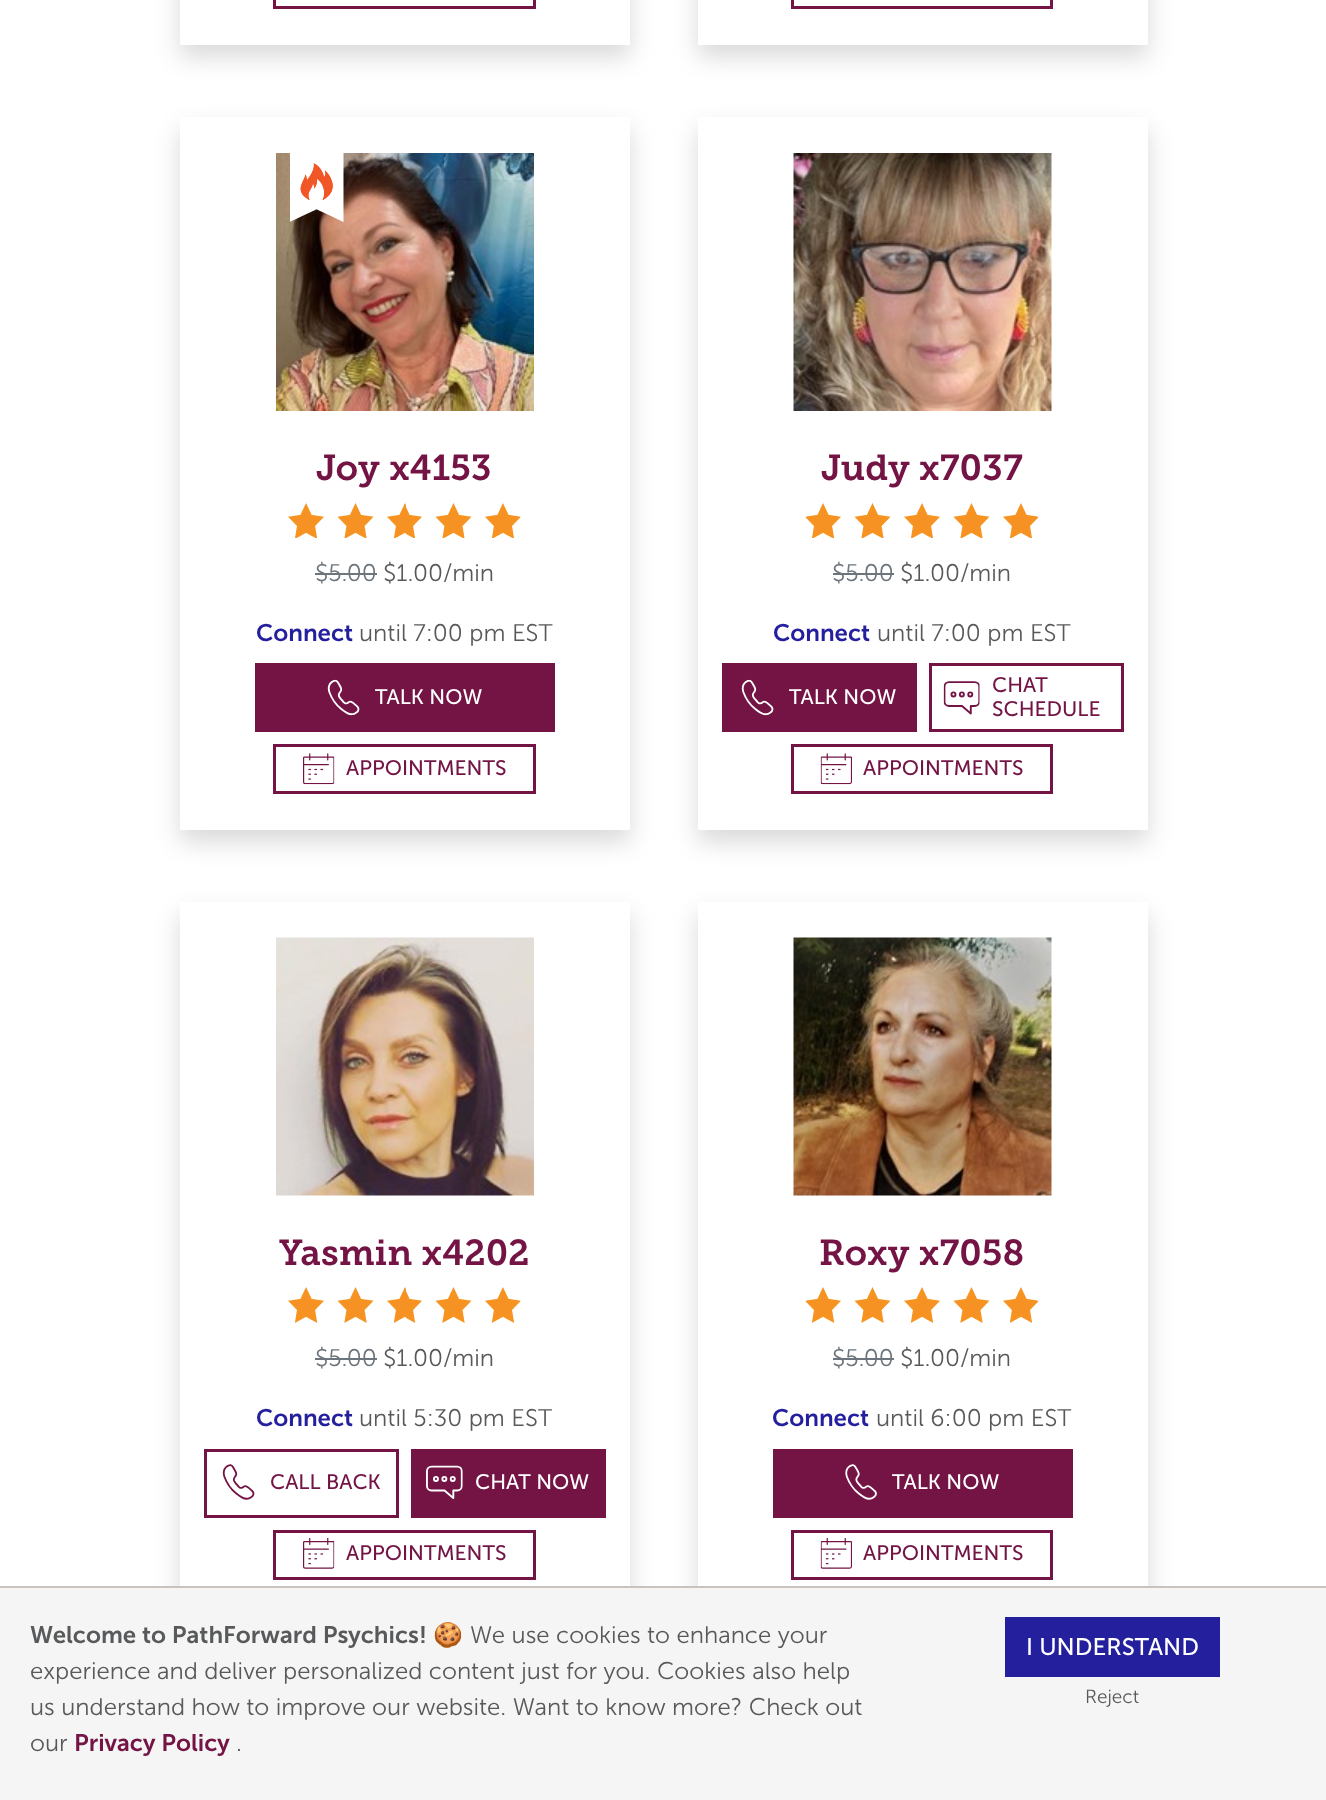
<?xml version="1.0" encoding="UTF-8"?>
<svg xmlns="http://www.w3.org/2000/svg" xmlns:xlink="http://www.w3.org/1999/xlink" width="1326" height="1800">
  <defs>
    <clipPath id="clip1"><path d="M 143 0 h 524 v 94 h -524 z m 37 -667 h 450 v 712 h -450 z" clip-rule="evenodd" /></clipPath>
  </defs>
  <rect width="100%" height="100%" fill="#ffffff" />
  <g clip-path="url(#clip1)">
    <rect x="180" y="-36" width="450" height="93" fill="#000000" fill-opacity="0.15" filter="blur(12px)" />
  </g>
  <rect x="274.5" y="-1.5" width="260" height="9" fill="none" stroke="#731445" stroke-width="3" />
  <rect x="698" y="-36" width="450" height="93" fill="#000000" fill-opacity="0.15" filter="blur(12px)" />
  <rect x="698" width="450" height="45" fill="#ffffff" />
  <rect x="792.5" y="-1.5" width="259" height="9" fill="none" stroke="#731445" stroke-width="3" />
  <rect x="180" y="129" width="450" height="713" fill="#000000" fill-opacity="0.15" filter="blur(12px)" />
  <rect x="180" y="117" width="450" height="713" fill="#ffffff" />
  <image x="276" y="153" width="258" height="258" xlink:href="image1.png" />
  <image x="290" y="153" width="54" height="69" xlink:href="image2.png" />
  <image x="288" y="502" width="233" height="37" xlink:href="image3.png" />
  <rect x="315" y="573" width="62" height="2" fill="#6c757d" />
  <rect x="255" y="663" width="300" height="69" fill="#731445" />
  <image x="327" y="679" width="33" height="37" xlink:href="image4.png" />
  <rect x="274.5" y="745.5" width="260" height="47" fill="none" stroke="#731445" stroke-width="3" />
  <image x="303" y="753" width="32" height="32" xlink:href="image5.png" />
  <rect x="698" y="129" width="450" height="713" fill="#000000" fill-opacity="0.15" filter="blur(12px)" />
  <rect x="698" y="117" width="450" height="713" fill="#ffffff" />
  <image x="793" y="153" width="259" height="258" xlink:href="image6.png" />
  <image x="805" y="502" width="233" height="37" xlink:href="image7.png" />
  <rect x="833" y="573" width="61" height="2" fill="#6c757d" />
  <rect x="722" y="663" width="195" height="69" fill="#731445" />
  <image x="741" y="679" width="33" height="37" xlink:href="image8.png" />
  <rect x="930.5" y="664.5" width="192" height="66" fill="none" stroke="#731445" stroke-width="3" />
  <image x="943" y="681" width="37" height="34" xlink:href="image9.png" />
  <rect x="792.5" y="745.5" width="259" height="47" fill="none" stroke="#731445" stroke-width="3" />
  <image x="820" y="753" width="32" height="32" xlink:href="image10.png" />
  <rect x="180" y="914" width="450" height="714" fill="#000000" fill-opacity="0.15" filter="blur(12px)" />
  <rect x="180" y="902" width="450" height="684" fill="#ffffff" />
  <image x="276" y="937" width="258" height="259" xlink:href="image11.png" />
  <image x="288" y="1287" width="233" height="36" xlink:href="image12.png" />
  <rect x="315" y="1358" width="62" height="2" fill="#6c757d" />
  <rect x="205.5" y="1450.5" width="192" height="66" fill="none" stroke="#731445" stroke-width="3" />
  <image x="222" y="1464" width="33" height="36" xlink:href="image13.png" />
  <rect x="411" y="1449" width="195" height="69" fill="#731445" />
  <image x="426" y="1465" width="37" height="34" xlink:href="image14.png" />
  <rect x="274.5" y="1531.5" width="260" height="47" fill="none" stroke="#731445" stroke-width="3" />
  <image x="303" y="1537" width="32" height="32" xlink:href="image15.png" />
  <rect x="698" y="914" width="450" height="714" fill="#000000" fill-opacity="0.15" filter="blur(12px)" />
  <rect x="698" y="902" width="450" height="684" fill="#ffffff" />
  <image x="793" y="937" width="259" height="259" xlink:href="image16.png" />
  <image x="805" y="1287" width="233" height="36" xlink:href="image17.png" />
  <rect x="833" y="1358" width="61" height="2" fill="#6c757d" />
  <rect x="773" y="1449" width="300" height="69" fill="#731445" />
  <image x="845" y="1464" width="32" height="36" xlink:href="image18.png" />
  <rect x="792.5" y="1531.5" width="259" height="47" fill="none" stroke="#731445" stroke-width="3" />
  <image x="820" y="1537" width="32" height="32" xlink:href="image19.png" />
  <rect y="1588" width="1326" height="212" fill="#f5f5f5" />
  <rect y="1586" width="1326" height="2" fill="#c8c3bf" />
  <rect x="1005" y="1617" width="215" height="60" fill="#241f9d" />
  <text x="316" y="480" style="font-family: 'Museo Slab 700'; font-size: 36px; font-weight: 600; fill: #731445">Joy x4153</text>
  <text x="315" y="581" style="font-family: 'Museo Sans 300'; font-size: 24px; font-weight: 300; fill: #6c757d">$5.00</text>
  <text x="383" y="581" style="font-family: 'Museo Sans 300'; font-size: 24px; font-weight: 300; fill: #58595b">$1.00/min</text>
  <text x="256" y="641" style="font-family: 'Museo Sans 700'; font-size: 24px; font-weight: 600; fill: #241f9d">Connect</text>
  <text x="359" y="641" style="font-family: 'Museo Sans 300'; font-size: 24px; font-weight: 300; fill: #58595b">until 7:00 pm EST</text>
  <text x="375" y="704" style="font-family: 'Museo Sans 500'; font-size: 21px; fill: #ffffff">TALK NOW</text>
  <text x="346" y="775" style="font-family: 'Museo Sans 500'; font-size: 21px; fill: #731445">APPOINTMENTS</text>
  <text x="821" y="480" style="font-family: 'Museo Slab 700'; font-size: 36px; font-weight: 600; fill: #731445">Judy x7037</text>
  <text x="832" y="581" style="font-family: 'Museo Sans 300'; font-size: 24px; font-weight: 300; fill: #6c757d">$5.00</text>
  <text x="900" y="581" style="font-family: 'Museo Sans 300'; font-size: 24px; font-weight: 300; fill: #58595b">$1.00/min</text>
  <text x="773" y="641" style="font-family: 'Museo Sans 700'; font-size: 24px; font-weight: 600; fill: #241f9d">Connect</text>
  <text x="877" y="641" style="font-family: 'Museo Sans 300'; font-size: 24px; font-weight: 300; fill: #58595b">until 7:00 pm EST</text>
  <text x="789" y="704" style="font-family: 'Museo Sans 500'; font-size: 21px; fill: #ffffff">TALK NOW</text>
  <text x="992" y="692" style="font-family: 'Museo Sans 500'; font-size: 21px; fill: #731445">CHAT</text>
  <text x="992" y="716" style="font-family: 'Museo Sans 500'; font-size: 21px; fill: #731445">SCHEDULE</text>
  <text x="863" y="775" style="font-family: 'Museo Sans 500'; font-size: 21px; fill: #731445">APPOINTMENTS</text>
  <text x="279" y="1265" style="font-family: 'Museo Slab 700'; font-size: 36px; font-weight: 600; fill: #731445">Yasmin x4202</text>
  <text x="315" y="1366" style="font-family: 'Museo Sans 300'; font-size: 24px; font-weight: 300; fill: #6c757d">$5.00</text>
  <text x="383" y="1366" style="font-family: 'Museo Sans 300'; font-size: 24px; font-weight: 300; fill: #58595b">$1.00/min</text>
  <text x="256" y="1426" style="font-family: 'Museo Sans 700'; font-size: 24px; font-weight: 600; fill: #241f9d">Connect</text>
  <text x="359" y="1426" style="font-family: 'Museo Sans 300'; font-size: 24px; font-weight: 300; fill: #58595b">until 5:30 pm EST</text>
  <text x="270" y="1489" style="font-family: 'Museo Sans 500'; font-size: 21px; fill: #731445">CALL BACK</text>
  <text x="475" y="1489" style="font-family: 'Museo Sans 500'; font-size: 21px; fill: #ffffff">CHAT NOW</text>
  <text x="346" y="1560" style="font-family: 'Museo Sans 500'; font-size: 21px; fill: #731445">APPOINTMENTS</text>
  <text x="819" y="1265" style="font-family: 'Museo Slab 700'; font-size: 36px; font-weight: 600; fill: #731445">Roxy x7058</text>
  <text x="832" y="1366" style="font-family: 'Museo Sans 300'; font-size: 24px; font-weight: 300; fill: #6c757d">$5.00</text>
  <text x="900" y="1366" style="font-family: 'Museo Sans 300'; font-size: 24px; font-weight: 300; fill: #58595b">$1.00/min</text>
  <text x="772" y="1426" style="font-family: 'Museo Sans 700'; font-size: 24px; font-weight: 600; fill: #241f9d">Connect</text>
  <text x="876" y="1426" style="font-family: 'Museo Sans 300'; font-size: 24px; font-weight: 300; fill: #58595b">until 6:00 pm EST</text>
  <text x="892" y="1489" style="font-family: 'Museo Sans 500'; font-size: 21px; fill: #ffffff">TALK NOW</text>
  <text x="863" y="1560" style="font-family: 'Museo Sans 500'; font-size: 21px; fill: #731445">APPOINTMENTS</text>
  <text x="30" y="1643" style="font-family: 'Museo Sans 700'; font-size: 24px; font-weight: 600; fill: #58595b">Welcome to PathForward Psychics!</text>
  <text x="433" y="1643" style="font-family: Noto Color Emoji; font-size: 24px; fill: #58595b">🍪</text>
  <text x="470" y="1643" style="font-family: 'Museo Sans 300'; font-size: 24px; font-weight: 300; fill: #58595b">We use cookies to enhance your</text>
  <text x="30" y="1679" style="font-family: 'Museo Sans 300'; font-size: 24px; font-weight: 300; fill: #58595b">experience and deliver personalized content just for you. Cookies also help</text>
  <text x="30" y="1715" style="font-family: 'Museo Sans 300'; font-size: 24px; font-weight: 300; fill: #58595b">us understand how to improve our website. Want to know more? Check out</text>
  <text x="30" y="1751" style="font-family: 'Museo Sans 300'; font-size: 24px; font-weight: 300; fill: #58595b">our</text>
  <text x="74" y="1751" style="font-family: 'Museo Sans 700'; font-size: 24px; font-weight: 600; fill: #731445">Privacy Policy</text>
  <text x="236" y="1751" style="font-family: 'Museo Sans 300'; font-size: 24px; font-weight: 300; fill: #58595b">.</text>
  <text x="1026" y="1655" style="font-family: 'Museo Sans 500'; font-size: 24px; fill: #ffffff">I UNDERSTAND</text>
  <text x="1085" y="1703" style="font-family: 'Museo Sans 300'; font-size: 19px; font-weight: 300; fill: #58595b">Reject</text>
</svg>
